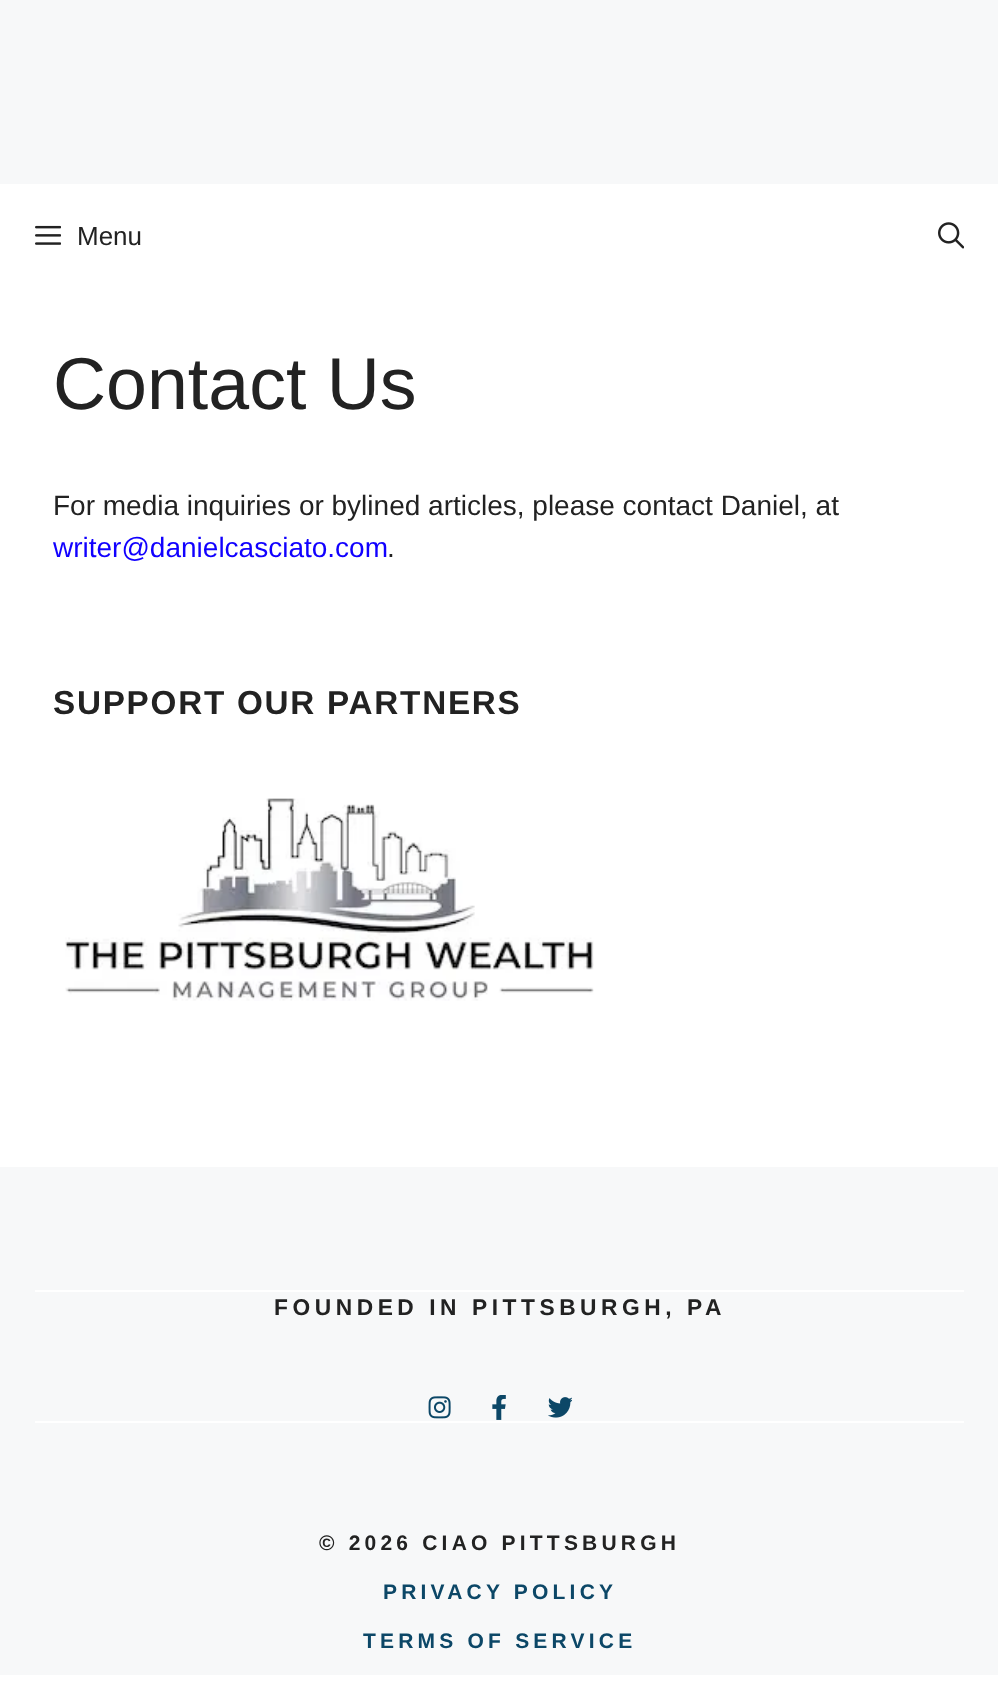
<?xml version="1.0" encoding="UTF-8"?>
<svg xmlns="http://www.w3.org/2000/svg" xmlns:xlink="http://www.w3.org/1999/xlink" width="998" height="1690">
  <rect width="100%" height="100%" fill="#ffffff" />
  <rect width="998" height="184" fill="#f7f8f9" />
  <image x="35" y="225" width="26" height="20" xlink:href="image1.png" />
  <image x="938" y="222" width="26" height="27" xlink:href="image2.png" />
  <image x="65" y="798" width="529" height="203" xlink:href="image3.png" />
  <rect y="1167" width="998" height="508" fill="#f7f8f9" />
  <rect x="35" y="1290" width="929" height="2" fill="#ffffff" />
  <rect x="35" y="1421" width="929" height="2" fill="#ffffff" />
  <image x="428" y="1396" width="23" height="23" xlink:href="image4.png" />
  <image x="492" y="1395" width="14" height="25" xlink:href="image5.png" />
  <image x="548" y="1397" width="24" height="21" xlink:href="image6.png" />
  <text x="77" y="245" style="font-family: Liberation Sans; font-size: 26px; fill: #222222">Menu</text>
  <text x="53" y="409" style="font-family: Liberation Sans; font-size: 73.5px; fill: #222222">Contact Us</text>
  <text x="53" y="515" style="font-family: Liberation Sans; font-size: 28px; fill: #222222">For media inquiries or bylined articles, please contact Daniel, at</text>
  <text x="53" y="557" style="font-family: Liberation Sans; font-size: 28px; fill: #1100ff">writer@danielcasciato.com</text>
  <text x="387" y="557" style="font-family: Liberation Sans; font-size: 28px; fill: #222222">.</text>
  <text x="53" y="714" style="font-family: Liberation Sans; font-size: 33.25px; font-weight: bold; letter-spacing: 1.75px; fill: #222222">SUPPORT OUR PARTNERS</text>
  <text x="274" y="1315" style="font-family: Liberation Sans; font-size: 22.75px; font-weight: bold; letter-spacing: 4.55px; fill: #222222">FOUNDED IN PITTSBURGH, PA</text>
  <text x="319" y="1550" style="font-family: Liberation Sans; font-size: 21px; font-weight: bold; letter-spacing: 4.2px; fill: #222222">© 2026 CIAO PITTSBURGH</text>
  <text x="383" y="1599" style="font-family: Liberation Sans; font-size: 21px; font-weight: bold; letter-spacing: 4.2px; fill: #0c4767">PRIVACY POLICY</text>
  <text x="363" y="1648" style="font-family: Liberation Sans; font-size: 21px; font-weight: bold; letter-spacing: 4.2px; fill: #0c4767">TERMS OF SERVICE</text>
</svg>
